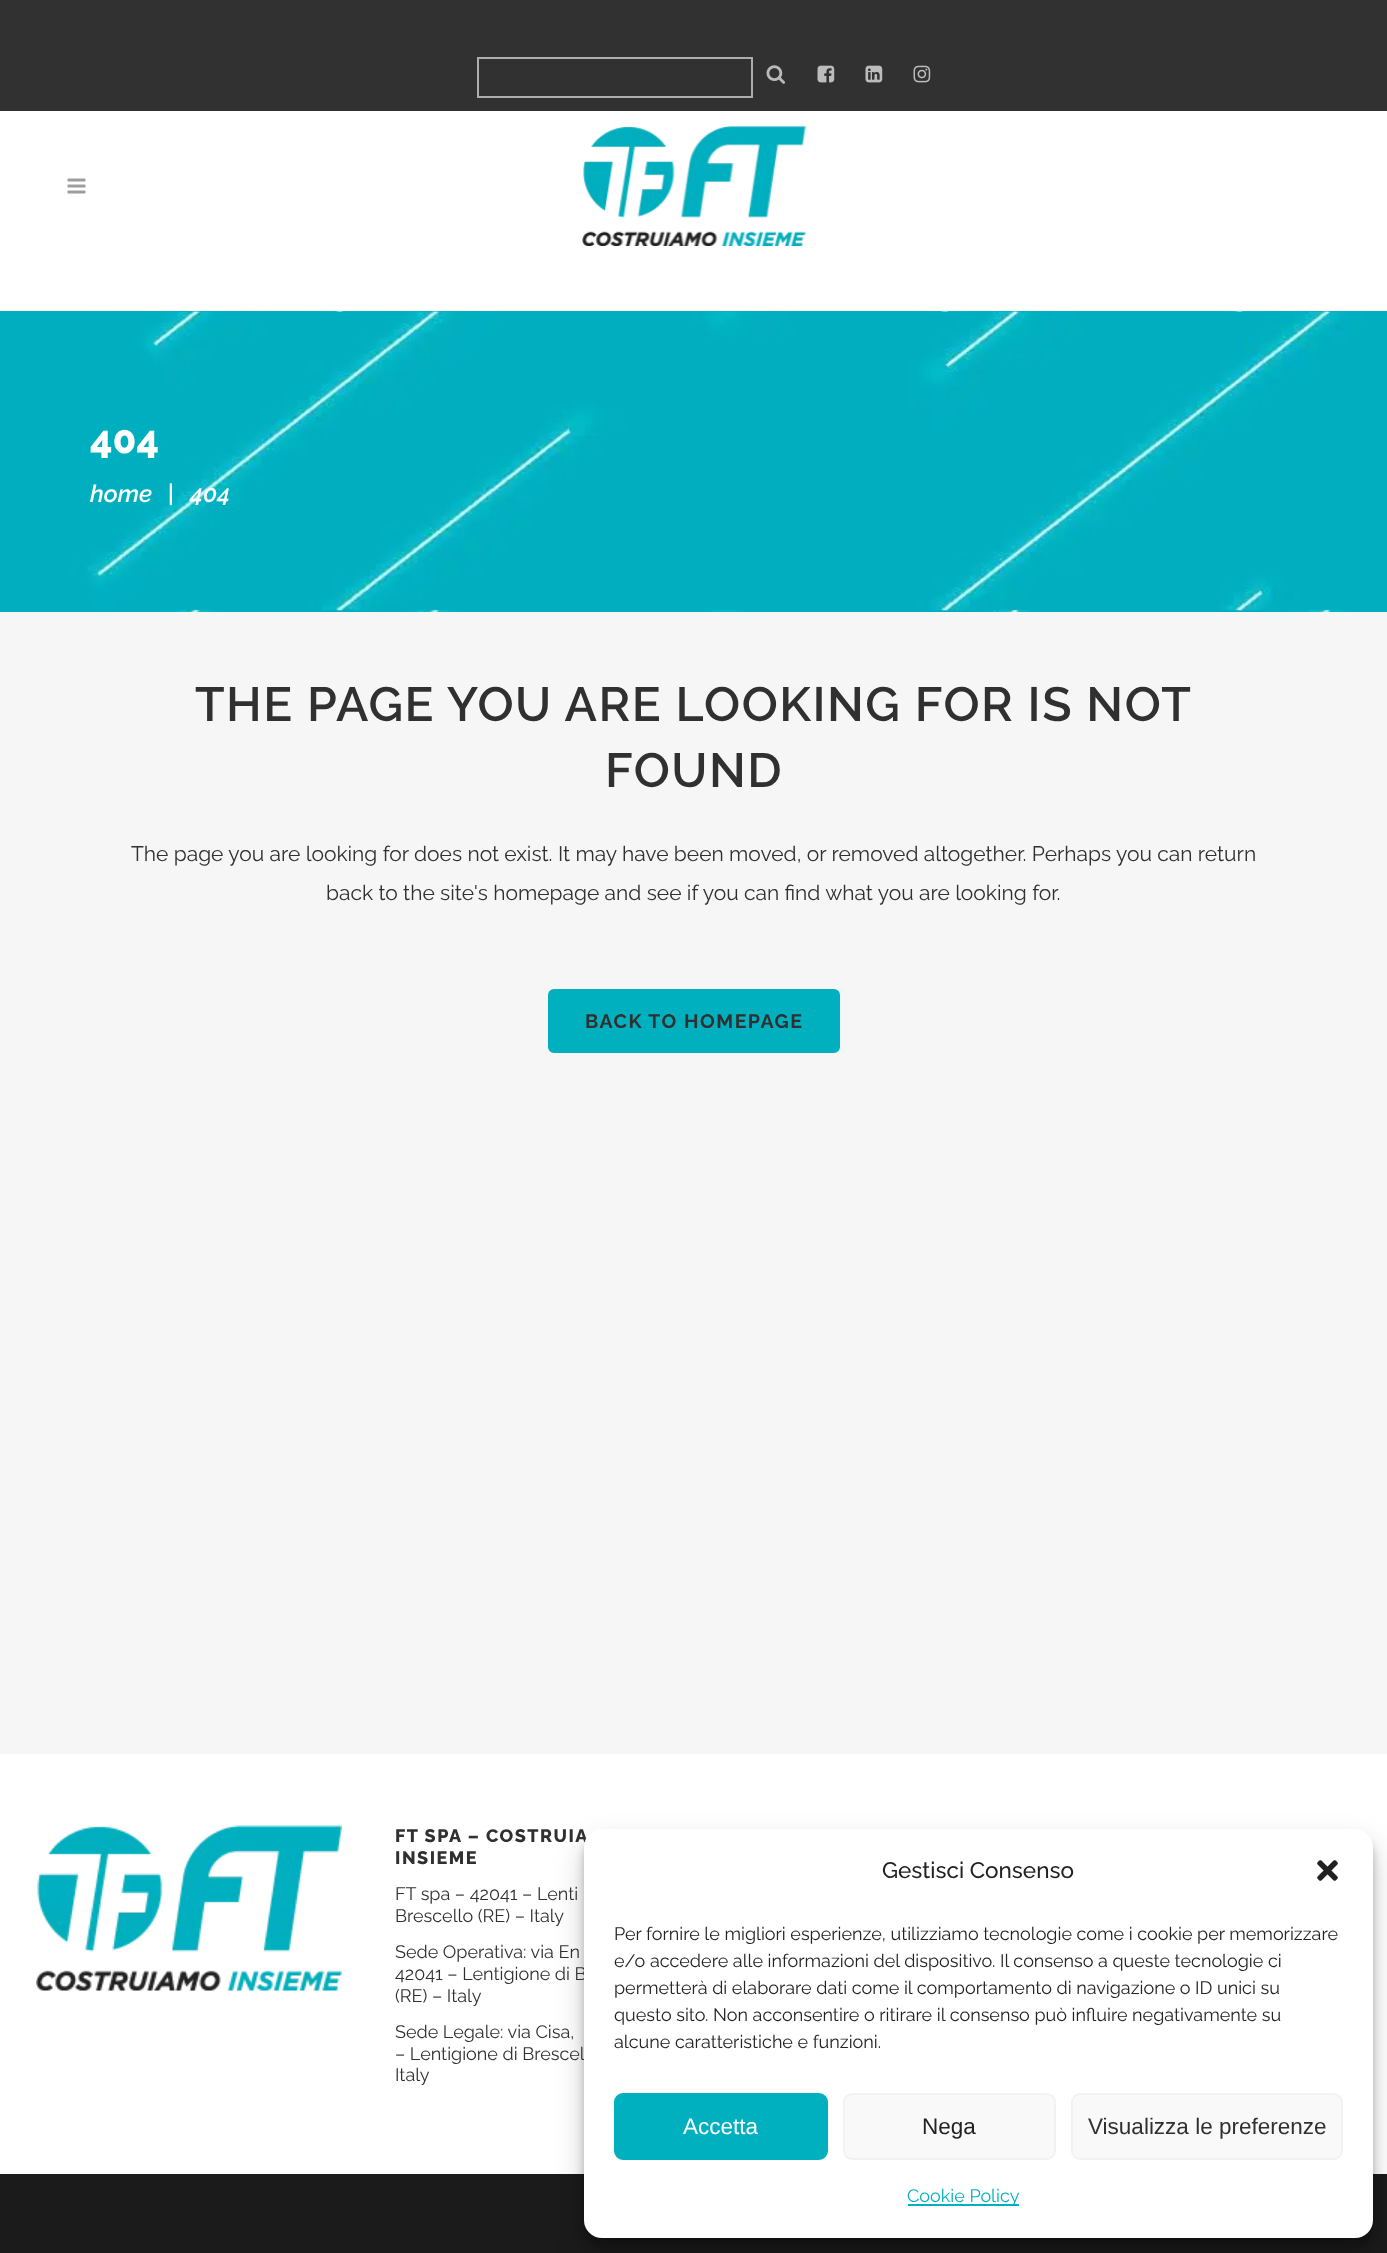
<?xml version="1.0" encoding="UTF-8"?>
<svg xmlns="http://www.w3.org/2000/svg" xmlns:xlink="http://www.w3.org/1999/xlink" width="1387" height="2253">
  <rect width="100%" height="100%" fill="#f6f6f6" />
  <rect width="1387" height="111" fill="#313131" />
  <rect x="478" y="58" width="274" height="39" fill="none" stroke="#adadad" stroke-width="2" />
  <image x="766" y="65" width="19" height="19" xlink:href="image1.png" />
  <image x="817" y="65" width="18" height="18" xlink:href="image2.png" />
  <image x="865" y="65" width="18" height="18" xlink:href="image3.png" />
  <image x="913" y="65" width="18" height="18" xlink:href="image4.png" />
  <rect y="111" width="1387" height="200" fill="#ffffff" />
  <image x="67" y="178" width="19" height="16" xlink:href="image5.png" />
  <image x="582" y="126" width="224" height="120" xlink:href="image6.png" />
  <image x="0" y="311" width="1387" height="301" xlink:href="image7.png" />
  <rect x="549.5" y="990.5" width="289" height="61" rx="4.5" fill="#00b0bf" stroke="#00b0bf" stroke-width="3" />
  <rect y="1754" width="1387" height="420" fill="#ffffff" />
  <image x="36" y="1825" width="306" height="166" xlink:href="image8.png" />
  <rect y="2174" width="1387" height="79" fill="#1b1b1b" />
  <rect x="584" y="1838" width="789" height="409" rx="18" fill="#000000" fill-opacity="0.23" filter="blur(4.5px)" />
  <rect x="584" y="1844" width="789" height="409" rx="18" fill="#000000" fill-opacity="0.19" filter="blur(15px)" />
  <text x="90" y="453" style="font-family: Raleway; font-size: 39px; font-weight: 800; fill: #ffffff">404</text>
  <text x="90" y="502" style="font-family: Raleway; font-size: 24px; font-weight: 600; font-style: italic; fill: #ffffff">home</text>
  <text x="167" y="502" style="font-family: Raleway; font-size: 24px; font-weight: 600; font-style: italic; fill: #ffffff">|</text>
  <text x="190" y="502" style="font-family: Raleway; font-size: 24px; font-weight: 600; font-style: italic; fill: #ffffff">404</text>
  <text x="195" y="721" style="font-family: Raleway; font-size: 48px; font-weight: 600; letter-spacing: 1.5px; fill: #303030">THE PAGE YOU ARE LOOKING FOR IS NOT</text>
  <text x="605" y="787" style="font-family: Raleway; font-size: 48px; font-weight: 600; letter-spacing: 1.5px; fill: #303030">FOUND</text>
  <text x="131" y="861" style="font-family: Raleway; font-size: 21px; fill: #303030">The page you are looking for does not exist. It may have been moved, or removed altogether. Perhaps you can return</text>
  <text x="326" y="900" style="font-family: Raleway; font-size: 21px; fill: #303030">back to the site's homepage and see if you can find what you are looking for.</text>
  <text x="585" y="1028" style="font-family: Raleway; font-size: 19.5px; font-weight: bold; letter-spacing: 1.5px; fill: #303030">BACK TO HOMEPAGE</text>
  <text x="395" y="1842" style="font-family: Raleway; font-size: 18px; font-weight: 800; letter-spacing: 1.5px; fill: #303030">FT SPA – COSTRUIA</text>
  <text x="395" y="1864" style="font-family: Raleway; font-size: 18px; font-weight: 800; letter-spacing: 1.5px; fill: #303030">INSIEME</text>
  <text x="395" y="1900" style="font-family: Raleway; font-size: 18px; fill: #303030">FT spa – 42041 – Lenti</text>
  <text x="395" y="1922" style="font-family: Raleway; font-size: 18px; fill: #303030">Brescello (RE) – Italy</text>
  <text x="395" y="1958" style="font-family: Raleway; font-size: 18px; fill: #303030">Sede Operativa: via En</text>
  <text x="395" y="1980" style="font-family: Raleway; font-size: 18px; fill: #303030">42041 – Lentigione di B</text>
  <text x="395" y="2002" style="font-family: Raleway; font-size: 18px; fill: #303030">(RE) – Italy</text>
  <text x="395" y="2038" style="font-family: Raleway; font-size: 18px; fill: #303030">Sede Legale: via Cisa,</text>
  <text x="395" y="2060" style="font-family: Raleway; font-size: 18px; fill: #303030">– Lentigione di Brescel</text>
  <text x="395" y="2081" style="font-family: Raleway; font-size: 18px; fill: #303030">Italy</text>
  <rect x="584" y="1829" width="789" height="409" rx="18" fill="#ffffff" />
  <text x="882" y="1878" style="font-family: Raleway; font-size: 22.5px; font-weight: 500; fill: #222222">Gestisci Consenso</text>
  <image x="1317" y="1860" width="21" height="21" xlink:href="image9.png" />
  <text x="614" y="1940" style="font-family: Raleway; font-size: 18px; fill: #222222">Per fornire le migliori esperienze, utilizziamo tecnologie come i cookie per memorizzare</text>
  <text x="614" y="1967" style="font-family: Raleway; font-size: 18px; fill: #222222">e/o accedere alle informazioni del dispositivo. Il consenso a queste tecnologie ci</text>
  <text x="614" y="1994" style="font-family: Raleway; font-size: 18px; fill: #222222">permetterà di elaborare dati come il comportamento di navigazione o ID unici su</text>
  <text x="614" y="2021" style="font-family: Raleway; font-size: 18px; fill: #222222">questo sito. Non acconsentire o ritirare il consenso può influire negativamente su</text>
  <text x="614" y="2048" style="font-family: Raleway; font-size: 18px; fill: #222222">alcune caratteristiche e funzioni.</text>
  <rect x="615" y="2094" width="212" height="65" rx="8" fill="#00b0bf" stroke="#00b0bf" stroke-width="2" />
  <text x="683" y="2134" style="font-family: Liberation Sans; font-size: 22.5px; fill: #ffffff">Accetta</text>
  <rect x="844" y="2094" width="211" height="65" rx="8" fill="#f9f9f9" stroke="#f2f2f2" stroke-width="2" />
  <text x="922" y="2134" style="font-family: Liberation Sans; font-size: 22.5px; fill: #222222">Nega</text>
  <rect x="1072" y="2094" width="270" height="65" rx="8" fill="#f9f9f9" stroke="#f2f2f2" stroke-width="2" />
  <text x="1088" y="2134" style="font-family: Liberation Sans; font-size: 22.5px; fill: #303030">Visualizza le preferenze</text>
  <rect x="908" y="2204" width="111" height="2" fill="#00b0bf" />
  <text x="907" y="2202" style="font-family: Raleway; font-size: 18px; fill: #00b0bf">Cookie Policy</text>
</svg>
